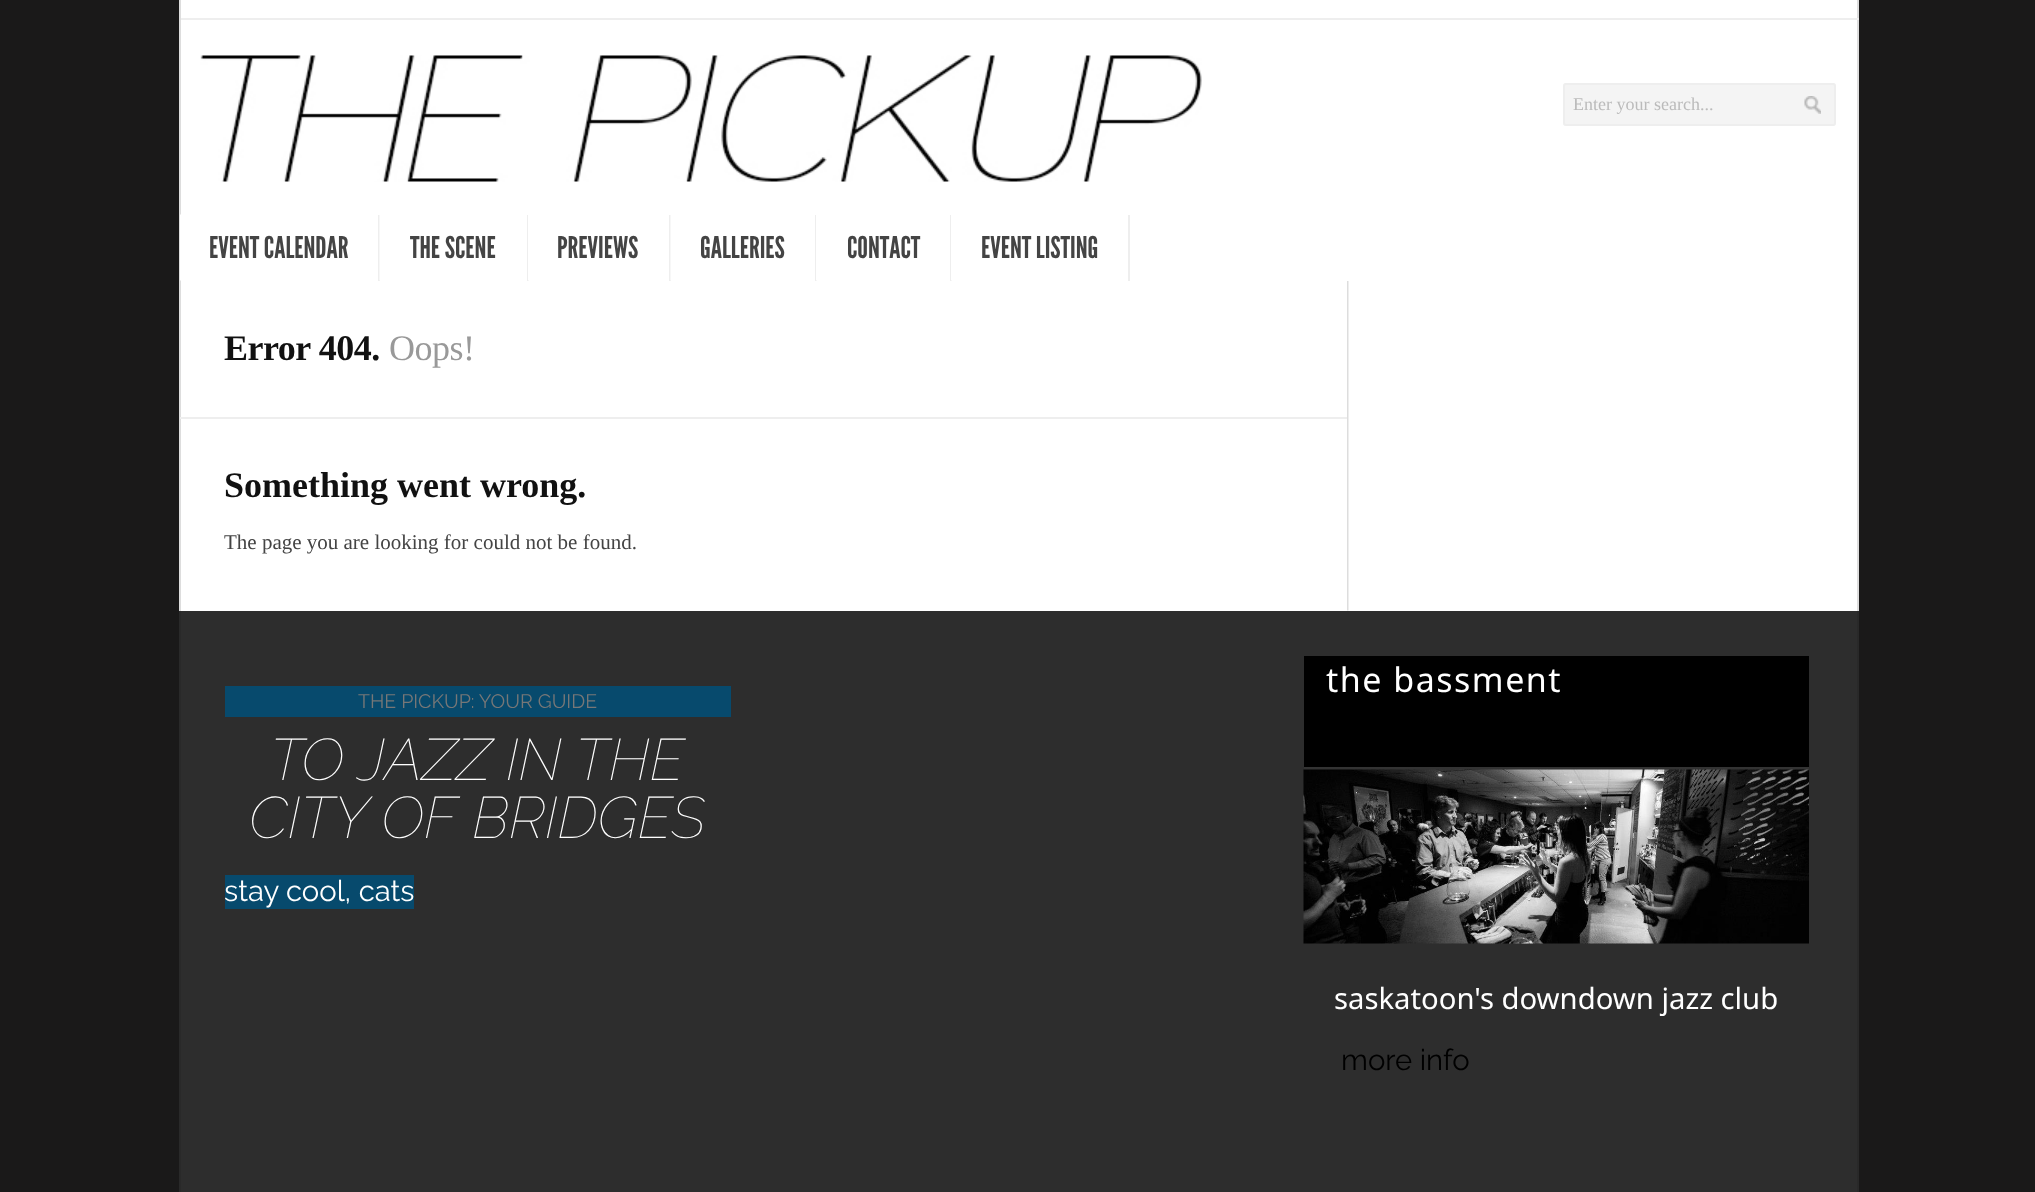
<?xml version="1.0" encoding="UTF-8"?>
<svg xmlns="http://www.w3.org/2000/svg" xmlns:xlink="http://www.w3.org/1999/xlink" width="2035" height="1192">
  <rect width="100%" height="100%" fill="#1a1919" />
  <rect x="181" width="1676" height="18" fill="#ffffff" />
  <rect x="1857" width="2" height="281" fill="#dddddd" />
  <rect x="179" y="18" width="1680" height="2" fill="#eeeeee" />
  <rect x="179" width="2" height="281" fill="#dddddd" />
  <rect x="181" y="20" width="1676" height="261" fill="#ffffff" />
  <image x="200" y="55" width="1002" height="127" xlink:href="image1.png" />
  <rect x="1563" y="83" width="273" height="43" rx="3" fill="#f4f4f4" />
  <image x="1804" y="96" width="17" height="18" xlink:href="image2.png" />
  <rect x="1564" y="84" width="271" height="41" rx="2" fill="none" stroke="#eeeeee" stroke-width="2" />
  <rect x="378" y="215" width="2" height="66" fill="#eeeeee" />
  <image x="180" y="214" width="1" height="67" xlink:href="image3.png" />
  <rect x="527" y="215" width="2" height="66" fill="#eeeeee" />
  <image x="379" y="215" width="1" height="66" xlink:href="image4.png" />
  <rect x="669" y="215" width="2" height="66" fill="#eeeeee" />
  <image x="528" y="215" width="1" height="66" xlink:href="image5.png" />
  <rect x="815" y="215" width="2" height="66" fill="#eeeeee" />
  <image x="670" y="215" width="1" height="66" xlink:href="image4.png" />
  <rect x="950" y="215" width="2" height="66" fill="#eeeeee" />
  <image x="816" y="215" width="1" height="66" xlink:href="image5.png" />
  <rect x="1128" y="215" width="2" height="66" fill="#eeeeee" />
  <image x="951" y="215" width="1" height="66" xlink:href="image5.png" />
  <rect x="181" y="281" width="1676" height="330" fill="#ffffff" />
  <rect x="1857" y="281" width="2" height="330" fill="#dddddd" />
  <rect x="179" y="281" width="2" height="330" fill="#dddddd" />
  <image x="1347" y="281" width="2" height="330" xlink:href="image6.png" />
  <rect x="180" y="417" width="1167" height="2" fill="#eeeeee" />
  <rect x="181" y="611" width="1676" height="581" fill="#2d2d2d" />
  <rect x="1857" y="611" width="2" height="581" fill="#292929" />
  <rect x="179" y="611" width="2" height="581" fill="#292929" />
  <rect x="225" y="686" width="506" height="31" fill="#074a6d" />
  <rect x="225" y="875" width="189" height="34" fill="#074a6d" />
  <rect x="1304" y="656" width="505" height="111" fill="#000000" />
  <rect x="1304" y="767" width="505" height="3" fill="#333333" />
  <image x="1303" y="769" width="506" height="175" xlink:href="image7.png" />
  <text x="1573" y="110" style="font-family: Liberation Serif; font-size: 18px; fill: #bbbbbb">Enter your search...</text>
  <text x="209" y="258" style="font-family: League Gothic; font-size: 30px; fill: #444444">EVENT CALENDAR</text>
  <text x="410" y="258" style="font-family: League Gothic; font-size: 30px; fill: #444444">THE SCENE</text>
  <text x="557" y="258" style="font-family: League Gothic; font-size: 30px; fill: #444444">PREVIEWS</text>
  <text x="700" y="258" style="font-family: League Gothic; font-size: 30px; fill: #444444">GALLERIES</text>
  <text x="847" y="258" style="font-family: League Gothic; font-size: 30px; fill: #444444">CONTACT</text>
  <text x="981" y="258" style="font-family: League Gothic; font-size: 30px; fill: #444444">EVENT LISTING</text>
  <text x="224" y="360" style="font-family: Liberation Serif; font-size: 36px; font-weight: bold; letter-spacing: -0.5px; fill: #111111">Error 404.</text>
  <text x="389" y="360" style="font-family: Liberation Serif; font-size: 36px; letter-spacing: -0.5px; fill: #999999">Oops!</text>
  <text x="224" y="497" style="font-family: Liberation Serif; font-size: 36px; font-weight: bold; fill: #111111">Something went wrong.</text>
  <text x="224" y="549" style="font-family: Liberation Serif; font-size: 21px; fill: #444444">The page you are looking for could not be found.</text>
  <text x="358" y="708" style="font-family: Raleway; font-size: 19.5px; fill: #777777">THE PICKUP: YOUR GUIDE</text>
  <text x="270" y="780" style="font-family: Raleway; font-size: 58.5px; font-weight: 100; font-style: italic; fill: #ffffff">TO JAZZ IN THE</text>
  <text x="249" y="838" style="font-family: Raleway; font-size: 58.5px; font-weight: 100; font-style: italic; fill: #ffffff">CITY OF BRIDGES</text>
  <text x="224" y="901" style="font-family: Raleway; font-size: 29.25px; fill: #ffffff">stay cool, cats</text>
  <text x="1326" y="692" style="font-family: Noto Sans; font-size: 34px; letter-spacing: 1.5px; fill: #ffffff">the bassment</text>
  <text x="1334" y="1009" style="font-family: Noto Sans; font-size: 29.25px; fill: #ffffff">saskatoon's downdown jazz club</text>
  <text x="1341" y="1070" style="font-family: Raleway; font-size: 29.25px; fill: #000000">more info</text>
</svg>
